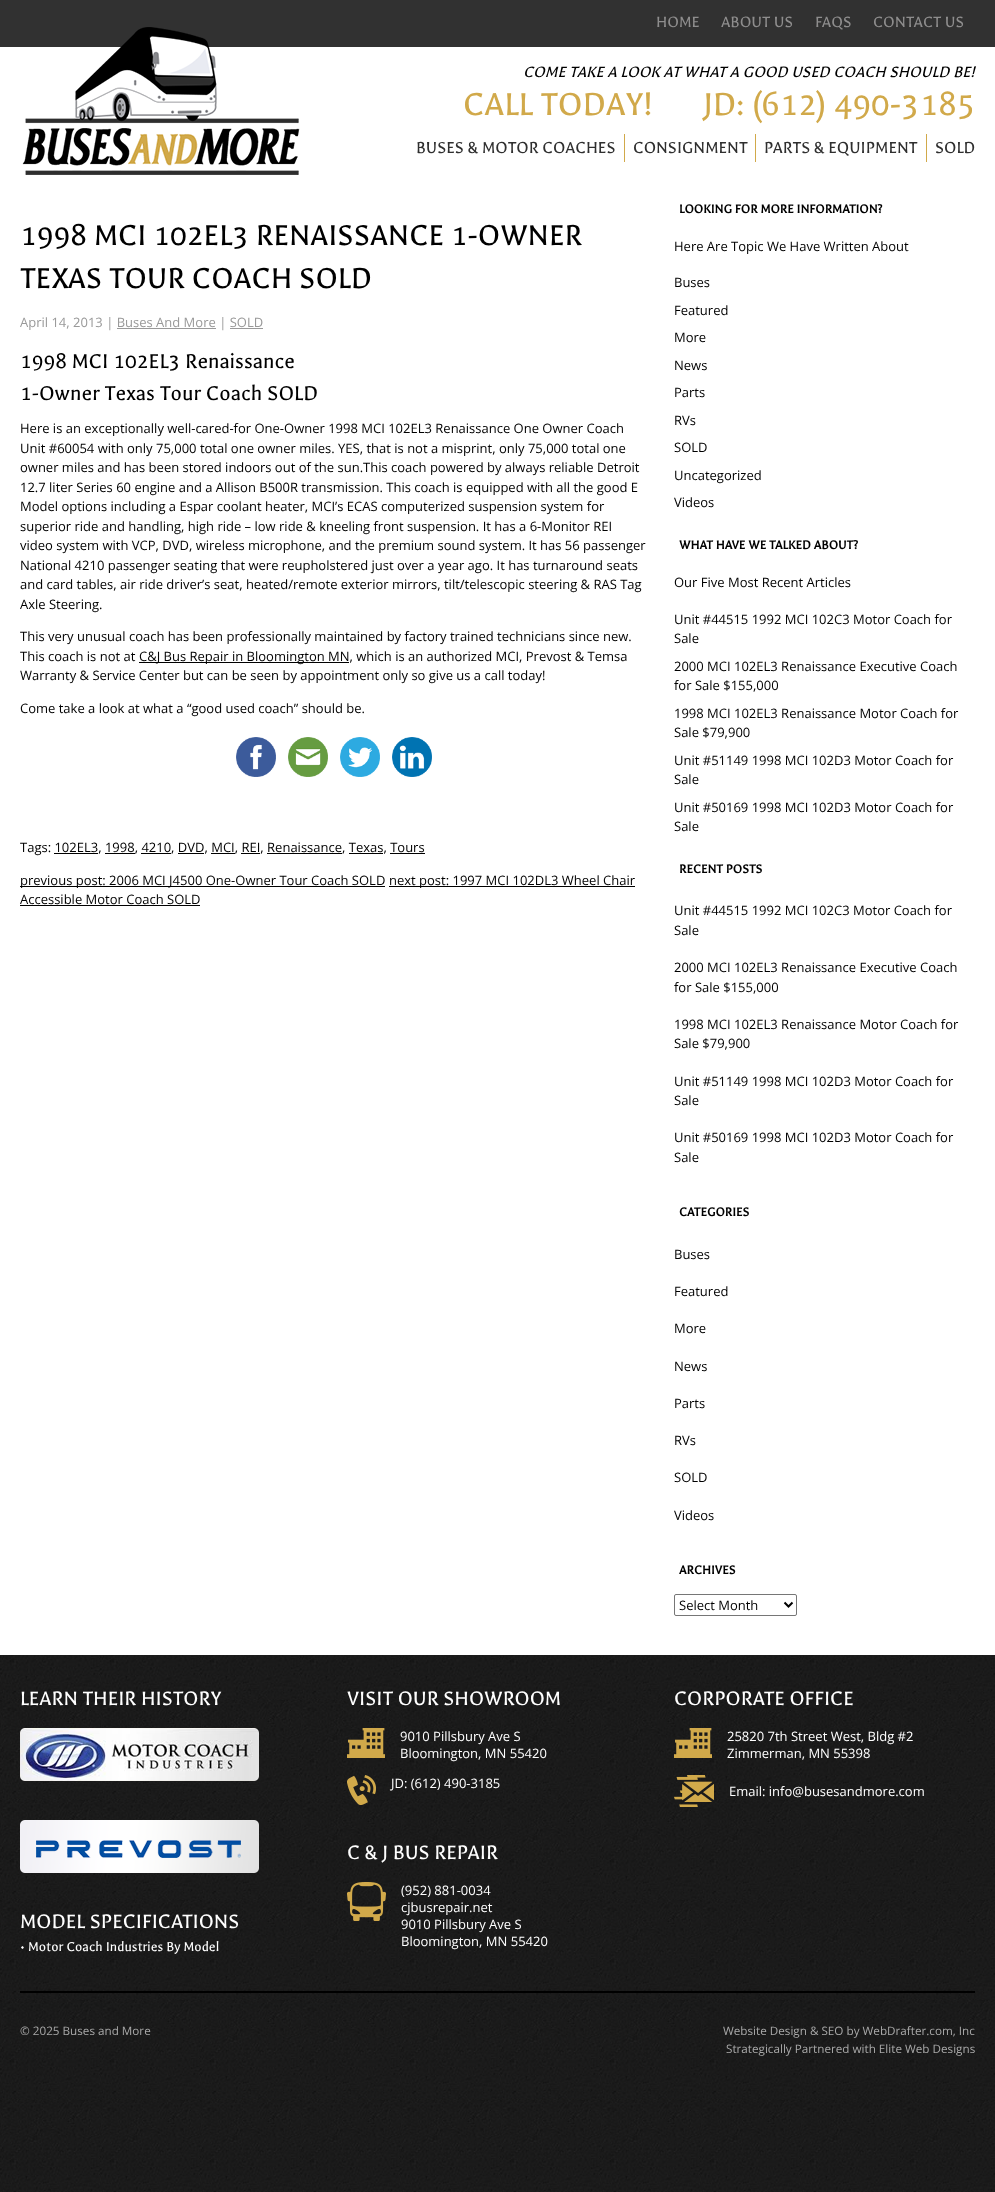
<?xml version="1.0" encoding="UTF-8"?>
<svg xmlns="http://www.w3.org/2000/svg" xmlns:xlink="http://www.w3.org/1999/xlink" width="995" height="2192">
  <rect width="100%" height="100%" fill="#ffffff" />
  <image x="0" y="1655" width="995" height="537" xlink:href="image1.png" />
  <rect width="995" height="47" fill="#313131" />
  <image x="22" y="27" width="278" height="148" xlink:href="image2.png" />
  <rect x="624" y="134" width="1" height="28" fill="#d1a94a" />
  <rect x="755" y="134" width="1" height="28" fill="#d1a94a" />
  <rect x="926" y="134" width="1" height="28" fill="#d1a94a" />
  <rect x="117" y="328" width="99" height="1" fill="#999999" />
  <rect x="230" y="328" width="33" height="1" fill="#999999" />
  <rect x="139" y="662" width="210" height="1" fill="#000000" />
  <image x="236" y="737" width="40" height="40" xlink:href="image3.png" />
  <image x="288" y="737" width="40" height="40" xlink:href="image4.png" />
  <image x="340" y="737" width="40" height="40" xlink:href="image5.png" />
  <image x="392" y="737" width="40" height="40" xlink:href="image6.png" />
  <rect x="54" y="853" width="44" height="1" fill="#000000" />
  <rect x="105" y="853" width="30" height="1" fill="#000000" />
  <rect x="141" y="853" width="30" height="1" fill="#000000" />
  <rect x="178" y="853" width="26" height="1" fill="#000000" />
  <rect x="211" y="853" width="24" height="1" fill="#000000" />
  <rect x="241" y="853" width="19" height="1" fill="#000000" />
  <rect x="267" y="853" width="75" height="1" fill="#000000" />
  <rect x="349" y="853" width="34" height="1" fill="#000000" />
  <rect x="390" y="853" width="35" height="1" fill="#000000" />
  <rect x="20" y="886" width="365" height="1" fill="#000000" />
  <rect x="389" y="886" width="246" height="1" fill="#000000" />
  <rect x="20" y="905" width="180" height="1" fill="#000000" />
  <rect x="674.5" y="1594.5" width="122" height="21" rx="1.5" fill="none" stroke="#767676" />
  <path d="M 784.5 1602.5 l 4 4 l 4 -4" fill="none" stroke="#000000" stroke-width="2" />
  <image x="20" y="1728" width="239" height="53" xlink:href="image7.png" />
  <image x="20" y="1820" width="239" height="53" xlink:href="image8.png" />
  <image x="347" y="1728" width="38" height="30" xlink:href="image9.png" />
  <image x="347" y="1775" width="29" height="30" xlink:href="image10.png" />
  <image x="347" y="1882" width="39" height="39" xlink:href="image11.png" />
  <image x="674" y="1728" width="38" height="30" xlink:href="image12.png" />
  <image x="674" y="1775" width="40" height="32" xlink:href="image13.png" />
  <rect x="20" y="1991" width="955" height="2" fill="#000000" />
  <text x="656" y="27" style="font-family: Galdeano; font-size: 17px; fill: #8e8d8d">HOME</text>
  <text x="721" y="27" style="font-family: Galdeano; font-size: 17px; fill: #8e8d8d">ABOUT US</text>
  <text x="815" y="27" style="font-family: Galdeano; font-size: 17px; fill: #8e8d8d">FAQS</text>
  <text x="873" y="27" style="font-family: Galdeano; font-size: 17px; fill: #8e8d8d">CONTACT US</text>
  <text x="523" y="77" style="font-family: Galdeano; font-size: 17px; font-style: italic; fill: #000000">COME TAKE A LOOK AT WHAT A GOOD USED COACH SHOULD BE!</text>
  <text x="463" y="115" style="font-family: Galdeano; font-size: 36px; fill: #d1a94a">CALL TODAY!</text>
  <text x="703" y="115" style="font-family: Galdeano; font-size: 36px; fill: #d1a94a">JD: (612) 490-3185</text>
  <text x="416" y="153" style="font-family: Galdeano; font-size: 18px; fill: #2f2f2f">BUSES &amp; MOTOR COACHES</text>
  <text x="633" y="153" style="font-family: Galdeano; font-size: 18px; fill: #2f2f2f">CONSIGNMENT</text>
  <text x="764" y="153" style="font-family: Galdeano; font-size: 18px; fill: #2f2f2f">PARTS &amp; EQUIPMENT</text>
  <text x="935" y="153" style="font-family: Galdeano; font-size: 18px; fill: #2f2f2f">SOLD</text>
  <text x="20" y="245" style="font-family: Galdeano; font-size: 32.5px; fill: #000000">1998 MCI 102EL3 RENAISSANCE 1-OWNER</text>
  <text x="20" y="288" style="font-family: Galdeano; font-size: 32.5px; fill: #000000">TEXAS TOUR COACH SOLD</text>
  <text x="20" y="327" style="font-family: Open Sans; font-size: 13px; fill: #999999">April 14, 2013 | Buses And More | SOLD</text>
  <text x="20" y="368" style="font-family: Galdeano; font-size: 22.75px; fill: #000000">1998 MCI 102EL3 Renaissance</text>
  <text x="20" y="400" style="font-family: Galdeano; font-size: 22.75px; fill: #000000">1-Owner Texas Tour Coach SOLD</text>
  <text x="20" y="433" style="font-family: Open Sans; font-size: 13px; fill: #000000">Here is an exceptionally well-cared-for One-Owner 1998 MCI 102EL3 Renaissance One Owner Coach</text>
  <text x="20" y="453" style="font-family: Open Sans; font-size: 13px; fill: #000000">Unit #60054 with only 75,000 total one owner miles. YES, that is not a misprint, only 75,000 total one</text>
  <text x="20" y="472" style="font-family: Open Sans; font-size: 13px; fill: #000000">owner miles and has been stored indoors out of the sun.This coach powered by always reliable Detroit</text>
  <text x="20" y="492" style="font-family: Open Sans; font-size: 13px; fill: #000000">12.7 liter Series 60 engine and a Allison B500R transmission. This coach is equipped with all the good E</text>
  <text x="20" y="511" style="font-family: Open Sans; font-size: 13px; fill: #000000">Model options including a Espar coolant heater, MCI’s ECAS computerized suspension system for</text>
  <text x="20" y="531" style="font-family: Open Sans; font-size: 13px; fill: #000000">superior ride and handling, high ride – low ride &amp; kneeling front suspension. It has a 6-Monitor REI</text>
  <text x="20" y="550" style="font-family: Open Sans; font-size: 13px; fill: #000000">video system with VCP, DVD, wireless microphone, and the premium sound system. It has 56 passenger</text>
  <text x="20" y="570" style="font-family: Open Sans; font-size: 13px; fill: #000000">National 4210 passenger seating that were reupholstered just over a year ago. It has turnaround seats</text>
  <text x="20" y="589" style="font-family: Open Sans; font-size: 13px; fill: #000000">and card tables, air ride driver’s seat, heated/remote exterior mirrors, tilt/telescopic steering &amp; RAS Tag</text>
  <text x="20" y="609" style="font-family: Open Sans; font-size: 13px; fill: #000000">Axle Steering.</text>
  <text x="20" y="641" style="font-family: Open Sans; font-size: 13px; fill: #000000">This very unusual coach has been professionally maintained by factory trained technicians since new.</text>
  <text x="20" y="661" style="font-family: Open Sans; font-size: 13px; fill: #000000">This coach is not at</text>
  <text x="139" y="661" style="font-family: Open Sans; font-size: 13px; fill: #000000">C&amp;J Bus Repair in Bloomington MN, which is an authorized MCI, Prevost &amp; Temsa</text>
  <text x="20" y="680" style="font-family: Open Sans; font-size: 13px; fill: #000000">Warranty &amp; Service Center but can be seen by appointment only so give us a call today!</text>
  <text x="20" y="713" style="font-family: Open Sans; font-size: 13px; fill: #000000">Come take a look at what a “good used coach” should be.</text>
  <text x="20" y="852" style="font-family: Open Sans; font-size: 13px; fill: #000000">Tags: 102EL3, 1998, 4210, DVD, MCI, REI, Renaissance, Texas, Tours</text>
  <text x="20" y="885" style="font-family: Open Sans; font-size: 13px; fill: #000000">previous post: 2006 MCI J4500 One-Owner Tour Coach SOLD</text>
  <text x="389" y="885" style="font-family: Open Sans; font-size: 13px; fill: #000000">next post: 1997 MCI 102DL3 Wheel Chair</text>
  <text x="20" y="904" style="font-family: Open Sans; font-size: 13px; fill: #000000">Accessible Motor Coach SOLD</text>
  <text x="679" y="213" style="font-family: Galdeano; font-size: 13.6px; font-weight: bold; fill: #000000">LOOKING FOR MORE INFORMATION?</text>
  <text x="674" y="251" style="font-family: Open Sans; font-size: 13px; fill: #000000">Here Are Topic We Have Written About</text>
  <text x="674" y="287" style="font-family: Open Sans; font-size: 13px; fill: #000000">Buses</text>
  <text x="674" y="315" style="font-family: Open Sans; font-size: 13px; fill: #000000">Featured</text>
  <text x="674" y="342" style="font-family: Open Sans; font-size: 13px; fill: #000000">More</text>
  <text x="674" y="370" style="font-family: Open Sans; font-size: 13px; fill: #000000">News</text>
  <text x="674" y="397" style="font-family: Open Sans; font-size: 13px; fill: #000000">Parts</text>
  <text x="674" y="425" style="font-family: Open Sans; font-size: 13px; fill: #000000">RVs</text>
  <text x="674" y="452" style="font-family: Open Sans; font-size: 13px; fill: #000000">SOLD</text>
  <text x="674" y="480" style="font-family: Open Sans; font-size: 13px; fill: #000000">Uncategorized</text>
  <text x="674" y="507" style="font-family: Open Sans; font-size: 13px; fill: #000000">Videos</text>
  <text x="679" y="549" style="font-family: Galdeano; font-size: 13.6px; font-weight: bold; fill: #000000">WHAT HAVE WE TALKED ABOUT?</text>
  <text x="674" y="587" style="font-family: Open Sans; font-size: 13px; fill: #000000">Our Five Most Recent Articles</text>
  <text x="674" y="624" style="font-family: Open Sans; font-size: 13px; fill: #000000">Unit #44515 1992 MCI 102C3 Motor Coach for</text>
  <text x="674" y="643" style="font-family: Open Sans; font-size: 13px; fill: #000000">Sale</text>
  <text x="674" y="671" style="font-family: Open Sans; font-size: 13px; fill: #000000">2000 MCI 102EL3 Renaissance Executive Coach</text>
  <text x="674" y="690" style="font-family: Open Sans; font-size: 13px; fill: #000000">for Sale $155,000</text>
  <text x="674" y="718" style="font-family: Open Sans; font-size: 13px; fill: #000000">1998 MCI 102EL3 Renaissance Motor Coach for</text>
  <text x="674" y="737" style="font-family: Open Sans; font-size: 13px; fill: #000000">Sale $79,900</text>
  <text x="674" y="765" style="font-family: Open Sans; font-size: 13px; fill: #000000">Unit #51149 1998 MCI 102D3 Motor Coach for</text>
  <text x="674" y="784" style="font-family: Open Sans; font-size: 13px; fill: #000000">Sale</text>
  <text x="674" y="812" style="font-family: Open Sans; font-size: 13px; fill: #000000">Unit #50169 1998 MCI 102D3 Motor Coach for</text>
  <text x="674" y="831" style="font-family: Open Sans; font-size: 13px; fill: #000000">Sale</text>
  <text x="679" y="873" style="font-family: Galdeano; font-size: 13.6px; font-weight: bold; fill: #000000">RECENT POSTS</text>
  <text x="674" y="915" style="font-family: Open Sans; font-size: 13px; fill: #000000">Unit #44515 1992 MCI 102C3 Motor Coach for</text>
  <text x="674" y="935" style="font-family: Open Sans; font-size: 13px; fill: #000000">Sale</text>
  <text x="674" y="972" style="font-family: Open Sans; font-size: 13px; fill: #000000">2000 MCI 102EL3 Renaissance Executive Coach</text>
  <text x="674" y="992" style="font-family: Open Sans; font-size: 13px; fill: #000000">for Sale $155,000</text>
  <text x="674" y="1029" style="font-family: Open Sans; font-size: 13px; fill: #000000">1998 MCI 102EL3 Renaissance Motor Coach for</text>
  <text x="674" y="1048" style="font-family: Open Sans; font-size: 13px; fill: #000000">Sale $79,900</text>
  <text x="674" y="1086" style="font-family: Open Sans; font-size: 13px; fill: #000000">Unit #51149 1998 MCI 102D3 Motor Coach for</text>
  <text x="674" y="1105" style="font-family: Open Sans; font-size: 13px; fill: #000000">Sale</text>
  <text x="674" y="1142" style="font-family: Open Sans; font-size: 13px; fill: #000000">Unit #50169 1998 MCI 102D3 Motor Coach for</text>
  <text x="674" y="1162" style="font-family: Open Sans; font-size: 13px; fill: #000000">Sale</text>
  <text x="679" y="1216" style="font-family: Galdeano; font-size: 13.6px; font-weight: bold; fill: #000000">CATEGORIES</text>
  <text x="674" y="1259" style="font-family: Open Sans; font-size: 13px; fill: #000000">Buses</text>
  <text x="674" y="1296" style="font-family: Open Sans; font-size: 13px; fill: #000000">Featured</text>
  <text x="674" y="1333" style="font-family: Open Sans; font-size: 13px; fill: #000000">More</text>
  <text x="674" y="1371" style="font-family: Open Sans; font-size: 13px; fill: #000000">News</text>
  <text x="674" y="1408" style="font-family: Open Sans; font-size: 13px; fill: #000000">Parts</text>
  <text x="674" y="1445" style="font-family: Open Sans; font-size: 13px; fill: #000000">RVs</text>
  <text x="674" y="1482" style="font-family: Open Sans; font-size: 13px; fill: #000000">SOLD</text>
  <text x="674" y="1520" style="font-family: Open Sans; font-size: 13px; fill: #000000">Videos</text>
  <text x="679" y="1574" style="font-family: Galdeano; font-size: 13.6px; font-weight: bold; fill: #000000">ARCHIVES</text>
  <text x="679" y="1610" style="font-family: Open Sans; font-size: 13px; fill: #000000">Select Month</text>
  <text x="20" y="1705" style="font-family: Galdeano; font-size: 22px; fill: #ffffff">LEARN THEIR HISTORY</text>
  <text x="20" y="1928" style="font-family: Galdeano; font-size: 22px; fill: #ffffff">MODEL SPECIFICATIONS</text>
  <text x="20" y="1951" style="font-family: Galdeano; font-size: 14.6px; fill: #ffffff">• Motor Coach Industries By Model</text>
  <text x="347" y="1705" style="font-family: Galdeano; font-size: 22px; fill: #ffffff">VISIT OUR SHOWROOM</text>
  <text x="400" y="1741" style="font-family: Open Sans; font-size: 13px; fill: #ffffff">9010 Pillsbury Ave S</text>
  <text x="400" y="1758" style="font-family: Open Sans; font-size: 13px; fill: #ffffff">Bloomington, MN 55420</text>
  <text x="391" y="1788" style="font-family: Open Sans; font-size: 13px; fill: #ffffff">JD: (612) 490-3185</text>
  <text x="347" y="1859" style="font-family: Galdeano; font-size: 22px; fill: #ffffff">C &amp; J BUS REPAIR</text>
  <text x="401" y="1895" style="font-family: Open Sans; font-size: 13px; fill: #ffffff">(952) 881-0034</text>
  <text x="401" y="1912" style="font-family: Open Sans; font-size: 13px; fill: #ffffff">cjbusrepair.net</text>
  <text x="401" y="1929" style="font-family: Open Sans; font-size: 13px; fill: #ffffff">9010 Pillsbury Ave S</text>
  <text x="401" y="1946" style="font-family: Open Sans; font-size: 13px; fill: #ffffff">Bloomington, MN 55420</text>
  <text x="674" y="1705" style="font-family: Galdeano; font-size: 22px; fill: #ffffff">CORPORATE OFFICE</text>
  <text x="727" y="1741" style="font-family: Open Sans; font-size: 13px; fill: #ffffff">25820 7th Street West, Bldg #2</text>
  <text x="727" y="1758" style="font-family: Open Sans; font-size: 13px; fill: #ffffff">Zimmerman, MN 55398</text>
  <text x="729" y="1796" style="font-family: Open Sans; font-size: 13px; fill: #ffffff">Email: info@busesandmore.com</text>
  <text x="20" y="2035" style="font-family: Open Sans; font-size: 11.7px; fill: #a9a9a9">© 2025 Buses and More</text>
  <text x="723" y="2035" style="font-family: Open Sans; font-size: 11.7px; fill: #a9a9a9">Website Design &amp; SEO by WebDrafter.com, Inc</text>
  <text x="726" y="2053" style="font-family: Open Sans; font-size: 11.7px; fill: #a9a9a9">Strategically Partnered with Elite Web Designs</text>
</svg>
